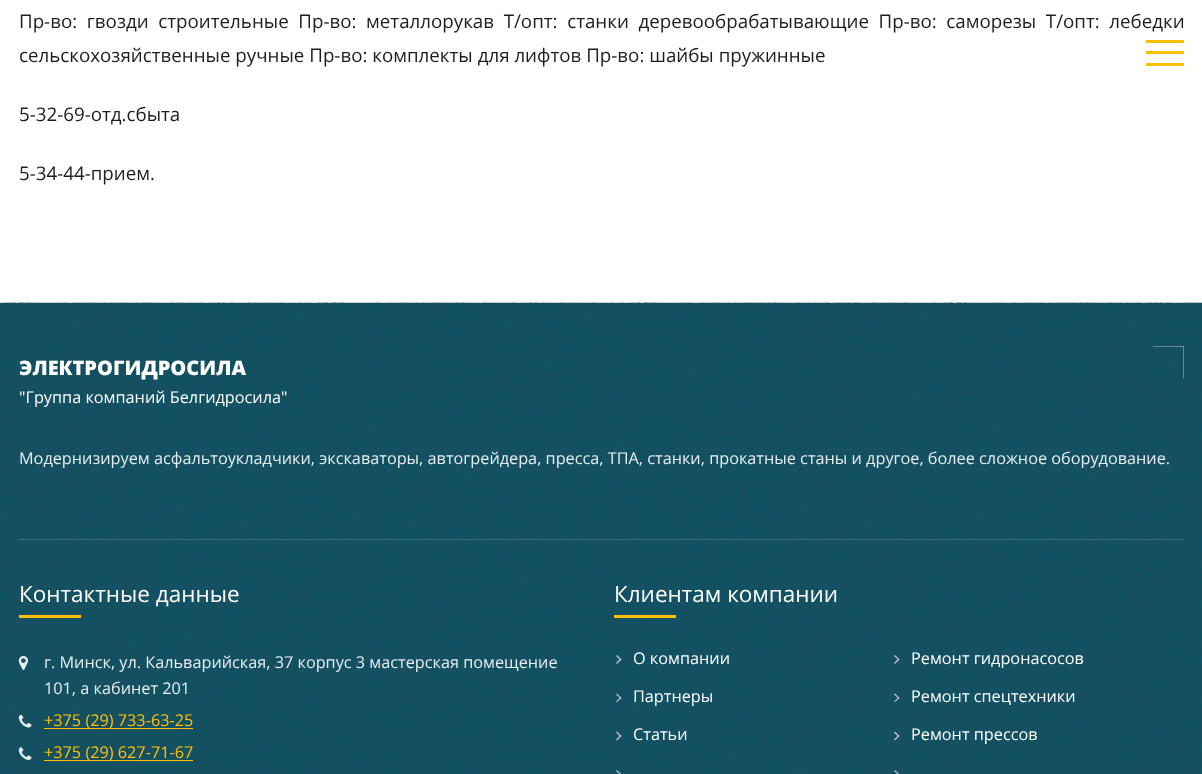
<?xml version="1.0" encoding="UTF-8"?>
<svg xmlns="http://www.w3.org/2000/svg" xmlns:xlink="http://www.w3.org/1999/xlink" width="1202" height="774">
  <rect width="100%" height="100%" fill="#ffffff" />
  <rect x="1146" y="40" width="38" height="3" fill="#ffc001" />
  <rect x="1146" y="51" width="38" height="3" fill="#ffc001" />
  <rect x="1146" y="63" width="38" height="3" fill="#ffc001" />
  <rect y="303" width="1202" height="471" fill="#00556d" />
  <image x="0" y="302" width="1202" height="472" xlink:href="image1.png" />
  <rect x="1153" y="346" width="31" height="1" fill="#bcc0c5" fill-opacity="0.5" />
  <rect x="1183" y="346" width="1" height="32" fill="#bcc0c5" fill-opacity="0.5" />
  <rect x="19" y="539" width="1165" height="1" fill="#dbdbdb" fill-opacity="0.2" />
  <rect x="19" y="615" width="62" height="3" fill="#ffc001" />
  <image x="18" y="656" width="10" height="14" xlink:href="image2.png" />
  <image x="18" y="714" width="14" height="14" xlink:href="image3.png" />
  <rect x="44" y="728" width="149" height="1" fill="#ffc001" />
  <image x="18" y="747" width="14" height="13" xlink:href="image4.png" />
  <rect x="44" y="760" width="149" height="1" fill="#ffc001" />
  <rect x="614" y="615" width="62" height="3" fill="#ffc001" />
  <path d="M 617 655 l 4.5 4.5 l -1 1 l -4.5 -4.5 z" fill="#bcc0c5" />
  <path d="M 620.5 658.5 l 1 1 l -4.5 4.5 l -1 -1 z" fill="#bcc0c5" />
  <path d="M 895 655 l 4.5 4.5 l -1 1 l -4.5 -4.5 z" fill="#bcc0c5" />
  <path d="M 898.5 658.5 l 1 1 l -4.5 4.5 l -1 -1 z" fill="#bcc0c5" />
  <path d="M 617 693.5 l 4.5 4.5 l -1 0.5 l -4.5 -4 z" fill="#bcc0c5" />
  <path d="M 620.5 697 l 1 1 l -4.5 4 l -1 -0.5 z" fill="#bcc0c5" />
  <path d="M 895 693.5 l 4.5 4.5 l -1 0.5 l -4.5 -4 z" fill="#bcc0c5" />
  <path d="M 898.5 697 l 1 1 l -4.5 4 l -1 -0.5 z" fill="#bcc0c5" />
  <path d="M 617 731.5 l 4.5 4.5 l -1 1 l -4.5 -4.5 z" fill="#bcc0c5" />
  <path d="M 620.5 735 l 1 1 l -4.5 4.5 l -1 -1 z" fill="#bcc0c5" />
  <path d="M 895 731.5 l 4.5 4.5 l -1 1 l -4.5 -4.5 z" fill="#bcc0c5" />
  <path d="M 898.5 735 l 1 1 l -4.5 4.5 l -1 -1 z" fill="#bcc0c5" />
  <path d="M 617 770 l 4.5 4.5 l -1 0.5 l -4.5 -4 z" fill="#bcc0c5" />
  <path d="M 620.5 773.5 l 1 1 l -4.5 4 l -1 -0.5 z" fill="#bcc0c5" />
  <path d="M 895 770 l 4.5 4.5 l -1 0.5 l -4.5 -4 z" fill="#bcc0c5" />
  <path d="M 898.5 773.5 l 1 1 l -4.5 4 l -1 -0.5 z" fill="#bcc0c5" />
  <text x="19" y="28" word-spacing="4.75" style="font-family: Open Sans; font-size: 18.75px; fill: #1b1e1f">Пр-во: гвозди строительные Пр-во: металлорукав Т/опт: станки деревообрабатывающие Пр-во: саморезы Т/опт: лебедки</text>
  <text x="19" y="62" style="font-family: Open Sans; font-size: 18.75px; fill: #1b1e1f">сельскохозяйственные ручные Пр-во: комплекты для лифтов Пр-во: шайбы пружинные</text>
  <text x="19" y="121" style="font-family: Open Sans; font-size: 18.75px; fill: #1b1e1f">5-32-69-отд.сбыта</text>
  <text x="19" y="180" style="font-family: Open Sans; font-size: 18.75px; fill: #1b1e1f">5-34-44-прием.</text>
  <text x="19" y="375" style="font-family: Open Sans; font-size: 20px; font-weight: 800; fill: #ffffff">ЭЛЕКТРОГИДРОСИЛА</text>
  <text x="19" y="403" style="font-family: Open Sans; font-size: 16.25px; fill: #ffffff">"Группа компаний Белгидросила"</text>
  <text x="19" y="464" style="font-family: Open Sans; font-size: 16.25px; fill: #e7eeef">Модернизируем асфальтоукладчики, экскаваторы, автогрейдера, пресса, ТПА, станки, прокатные станы и другое, более сложное оборудование.</text>
  <text x="19" y="602" style="font-family: Open Sans; font-size: 22.5px; fill: #ffffff">Контактные данные</text>
  <text x="44" y="668" style="font-family: Open Sans; font-size: 16.25px; fill: #e7eeef">г. Минск, ул. Кальварийская, 37 корпус 3 мастерская помещение</text>
  <text x="44" y="694" style="font-family: Open Sans; font-size: 16.25px; fill: #e7eeef">101, а кабинет 201</text>
  <text x="44" y="726" style="font-family: Open Sans; font-size: 16.25px; fill: #ffc001">+375 (29) 733-63-25</text>
  <text x="44" y="758" style="font-family: Open Sans; font-size: 16.25px; fill: #ffc001">+375 (29) 627-71-67</text>
  <text x="614" y="602" style="font-family: Open Sans; font-size: 22.5px; fill: #ffffff">Клиентам компании</text>
  <text x="633" y="664" style="font-family: Open Sans; font-size: 16.25px; fill: #ffffff">О компании</text>
  <text x="911" y="664" style="font-family: Open Sans; font-size: 16.25px; fill: #ffffff">Ремонт гидронасосов</text>
  <text x="633" y="702" style="font-family: Open Sans; font-size: 16.25px; fill: #ffffff">Партнеры</text>
  <text x="911" y="702" style="font-family: Open Sans; font-size: 16.25px; fill: #ffffff">Ремонт спецтехники</text>
  <text x="633" y="740" style="font-family: Open Sans; font-size: 16.25px; fill: #ffffff">Статьи</text>
  <text x="911" y="740" style="font-family: Open Sans; font-size: 16.25px; fill: #ffffff">Ремонт прессов</text>
</svg>
